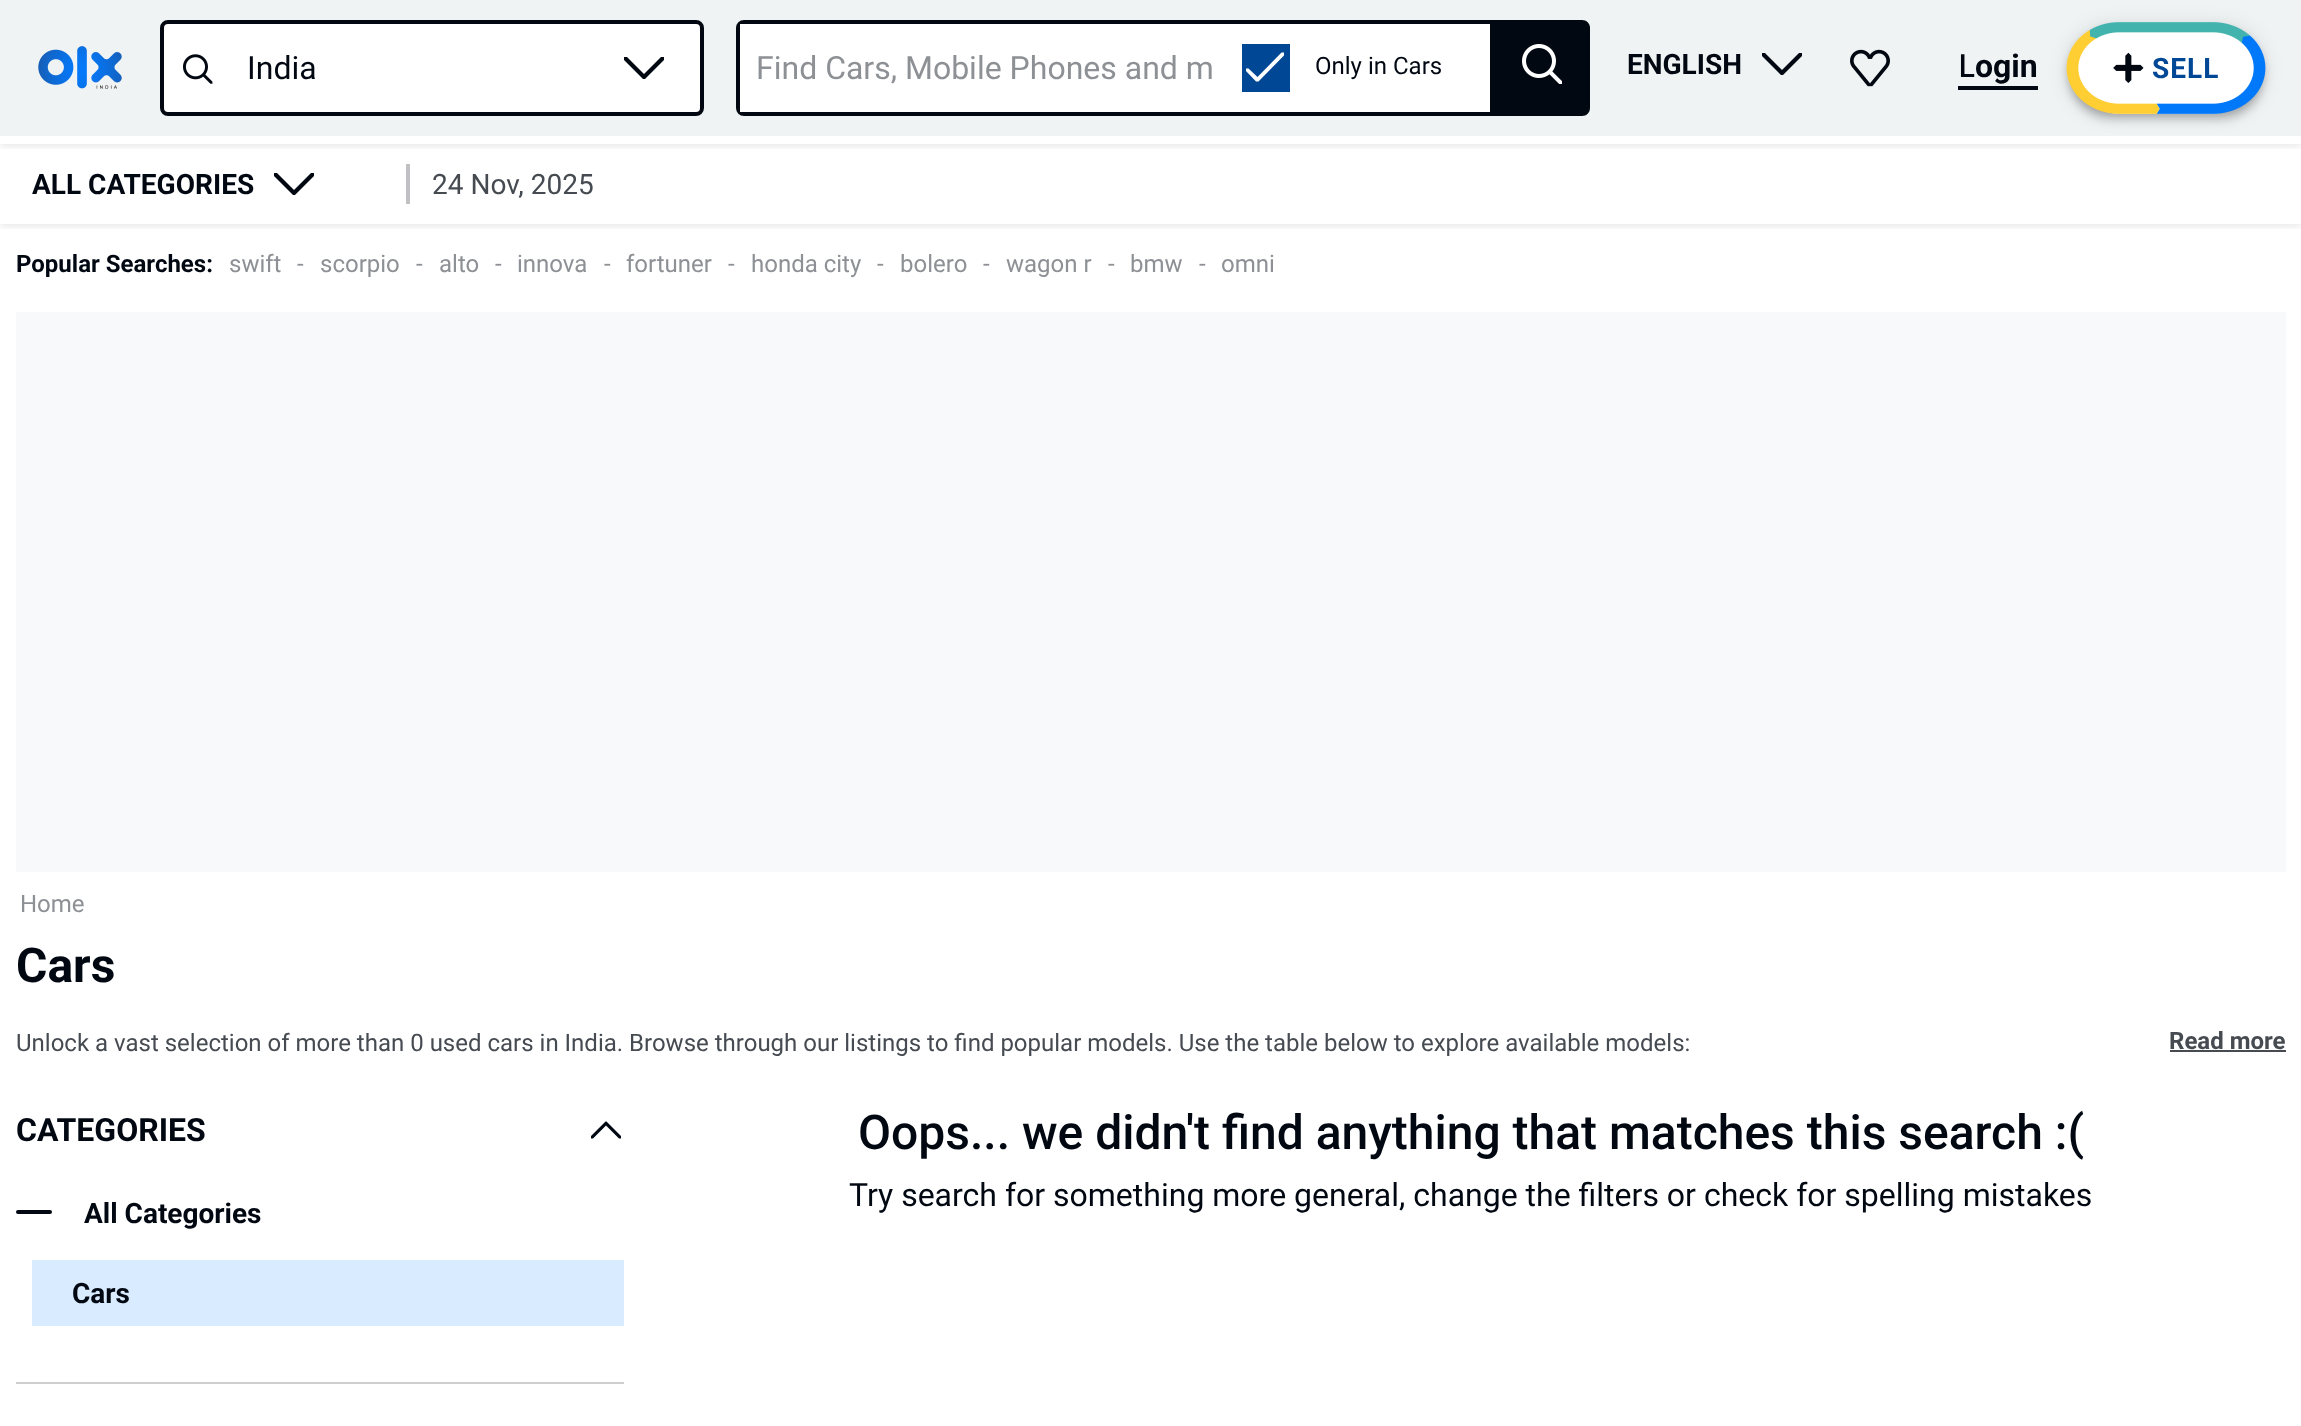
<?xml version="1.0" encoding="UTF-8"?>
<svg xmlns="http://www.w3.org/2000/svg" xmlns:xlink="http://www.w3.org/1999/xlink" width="2301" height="1426">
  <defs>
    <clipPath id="clip1"><rect x="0" y="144" width="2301" height="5" /></clipPath>
    <clipPath id="clip2"><rect x="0" y="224" width="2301" height="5" /></clipPath>
  </defs>
  <rect width="100%" height="100%" fill="#ffffff" />
  <g clip-path="url(#clip1)">
    <rect y="2" width="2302" height="144" fill="#000000" fill-opacity="0.1" filter="blur(4px)" />
  </g>
  <g clip-path="url(#clip2)">
    <rect y="2" width="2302" height="224" fill="#000000" fill-opacity="0.1" filter="blur(4px)" />
  </g>
  <rect width="2301" height="136" fill="#f8fafa" />
  <rect x="2068" y="32" width="196" height="88" rx="44" fill="#000000" fill-opacity="0.14" filter="blur(5px)" />
  <rect x="2068" y="26" width="196" height="88" rx="44" fill="#000000" fill-opacity="0.12" filter="blur(10px)" />
  <rect x="2070" y="30" width="192" height="84" rx="42" fill="#000000" fill-opacity="0.2" filter="blur(4px)" />
  <rect width="2301" height="136" fill="#002f34" fill-opacity="0.03" />
  <image x="38" y="46" width="84" height="43" xlink:href="image1.png" />
  <rect x="162" y="22" width="540" height="92" rx="6" fill="#ffffff" stroke="#020812" stroke-width="4" />
  <image x="183" y="54" width="30" height="30" xlink:href="image2.png" />
  <path d="M 624 57 h 3 l 17 17 l 17 -17 h 3 v 3 l -19 19 h -2 l -19 -19 z" fill="#020812" fill-rule="evenodd" />
  <path d="M 744 22 h 748 v 92 h -748 c -3.5 0 -6 -2.5 -6 -6 v -80 c 0 -3.5 2.5 -6 6 -6 z" fill="none" stroke="#020812" stroke-width="4" />
  <rect x="740" y="24" width="750" height="88" fill="#ffffff" />
  <rect x="1242" y="44" width="48" height="48" fill="#004896" />
  <path d="M 1281.5 52.5 l -24 24.5 l -9 -8.5 h -2.5 v 2.5 l 10 10.5 h 2.5 l 25.5 -26 v -3 z" fill="#ffffff" fill-rule="evenodd" />
  <path d="M 1494 20 h 88 c 4.5 0 8 3.5 8 8 v 80 c 0 4.5 -3.5 8 -8 8 h -88 z" fill="#020812" />
  <image x="1522" y="44" width="40" height="40" xlink:href="image3.png" />
  <path d="M 1762 53 h 3 l 17 17 l 17 -17 h 3 v 3 l -19 19 h -2 l -19 -19 z" fill="#020812" fill-rule="evenodd" />
  <image x="1850" y="49" width="40" height="38" xlink:href="image4.png" />
  <rect x="1958" y="86" width="80" height="4" fill="#020812" />
  <image x="2066" y="22" width="200" height="92" xlink:href="image5.png" />
  <image x="2113" y="52" width="31" height="31" xlink:href="image6.png" />
  <path d="M 274 173 h 3 l 17 17 l 17 -17 h 3 v 3 l -19 19 h -2 l -19 -19 z" fill="#020812" fill-rule="evenodd" />
  <rect x="406" y="164" width="4" height="40" fill="#c0c1c4" />
  <rect x="16" y="312" width="2270" height="560" fill="#f8f9fa" />
  <rect x="2170" y="1050" width="116" height="2" fill="#464b52" />
  <path d="M 591 1138.5 h 2 l 13 -13 l 13 13 h 2 v -2.5 l -14.5 -14.5 h -1 l -14.5 14.5 z" fill="#020812" fill-rule="evenodd" />
  <rect x="16" y="1210" width="36" height="4" rx="2" fill="#020812" />
  <rect x="32" y="1260" width="592" height="66" fill="#d9ebfe" />
  <rect x="16" y="1382" width="608" height="2" fill="#cfcdcd" />
  <text x="247" y="79" style="font-family: Roboto; font-size: 32px; fill: #020812">India</text>
  <text x="756" y="79" style="font-family: Roboto; font-size: 32px; fill: #8d9094">Find Cars, Mobile Phones and m</text>
  <text x="1315" y="74" style="font-family: Roboto; font-size: 24px; fill: #020812">Only in Cars</text>
  <text x="1627" y="74" style="font-family: Roboto; font-size: 28px; font-weight: bold; fill: #020812">ENGLISH</text>
  <text x="1958" y="77" style="font-family: Noto Sans; font-size: 32px; font-weight: 500; fill: #020812">L</text>
  <text x="1975" y="77" style="font-family: Roboto; font-size: 32px; font-weight: bold; fill: #020812">ogin</text>
  <text x="2152" y="78" style="font-family: Roboto; font-size: 28px; font-weight: bold; letter-spacing: 1px; fill: #004896">SELL</text>
  <text x="32" y="194" style="font-family: Roboto; font-size: 28px; font-weight: bold; fill: #020812">ALL CATEGORIES</text>
  <text x="432" y="194" style="font-family: Roboto; font-size: 28px; fill: #464b52">24 Nov, 2025</text>
  <text x="16" y="272" style="font-family: Roboto; font-size: 24px; font-weight: bold; fill: #020812">Popular Searches:</text>
  <text x="229" y="272" style="font-family: Roboto; font-size: 24px; fill: #8d9094">swift</text>
  <text x="297" y="272" style="font-family: Roboto; font-size: 24px; fill: #8d9094">-</text>
  <text x="320" y="272" style="font-family: Roboto; font-size: 24px; fill: #8d9094">scorpio</text>
  <text x="416" y="272" style="font-family: Roboto; font-size: 24px; fill: #8d9094">-</text>
  <text x="439" y="272" style="font-family: Roboto; font-size: 24px; fill: #8d9094">alto</text>
  <text x="495" y="272" style="font-family: Roboto; font-size: 24px; fill: #8d9094">-</text>
  <text x="517" y="272" style="font-family: Roboto; font-size: 24px; fill: #8d9094">innova</text>
  <text x="604" y="272" style="font-family: Roboto; font-size: 24px; fill: #8d9094">-</text>
  <text x="626" y="272" style="font-family: Roboto; font-size: 24px; fill: #8d9094">fortuner</text>
  <text x="728" y="272" style="font-family: Roboto; font-size: 24px; fill: #8d9094">-</text>
  <text x="751" y="272" style="font-family: Roboto; font-size: 24px; fill: #8d9094">honda city</text>
  <text x="877" y="272" style="font-family: Roboto; font-size: 24px; fill: #8d9094">-</text>
  <text x="900" y="272" style="font-family: Roboto; font-size: 24px; fill: #8d9094">bolero</text>
  <text x="983" y="272" style="font-family: Roboto; font-size: 24px; fill: #8d9094">-</text>
  <text x="1006" y="272" style="font-family: Roboto; font-size: 24px; fill: #8d9094">wagon r</text>
  <text x="1108" y="272" style="font-family: Roboto; font-size: 24px; fill: #8d9094">-</text>
  <text x="1130" y="272" style="font-family: Roboto; font-size: 24px; fill: #8d9094">bmw</text>
  <text x="1199" y="272" style="font-family: Roboto; font-size: 24px; fill: #8d9094">-</text>
  <text x="1221" y="272" style="font-family: Roboto; font-size: 24px; fill: #8d9094">omni</text>
  <text x="20" y="912" style="font-family: Roboto; font-size: 24px; fill: #8d9094">Home</text>
  <text x="16" y="982" style="font-family: Roboto; font-size: 48px; font-weight: bold; fill: #020812">Cars</text>
  <text x="16" y="1051" style="font-family: Roboto; font-size: 24px; fill: #464b52">Unlock a vast selection of more than 0 used cars in India. Browse through our listings to find popular models. Use the table below to explore available models:</text>
  <text x="2169" y="1049" style="font-family: Roboto; font-size: 24px; font-weight: bold; fill: #464b52">Read more</text>
  <text x="16" y="1141" style="font-family: Roboto; font-size: 32px; font-weight: bold; fill: #020812">CATEGORIES</text>
  <text x="84" y="1223" style="font-family: Roboto; font-size: 28px; font-weight: bold; fill: #020812">All Categories</text>
  <text x="72" y="1303" style="font-family: Roboto; font-size: 28px; font-weight: bold; fill: #020812">Cars</text>
  <text x="858" y="1149" style="font-family: Roboto; font-size: 48px; font-weight: 500; fill: #020812">Oops... we didn't find anything that matches this search :(</text>
  <text x="849" y="1206" style="font-family: Roboto; font-size: 32px; fill: #020812">Try search for something more general, change the filters or check for spelling mistakes</text>
</svg>
